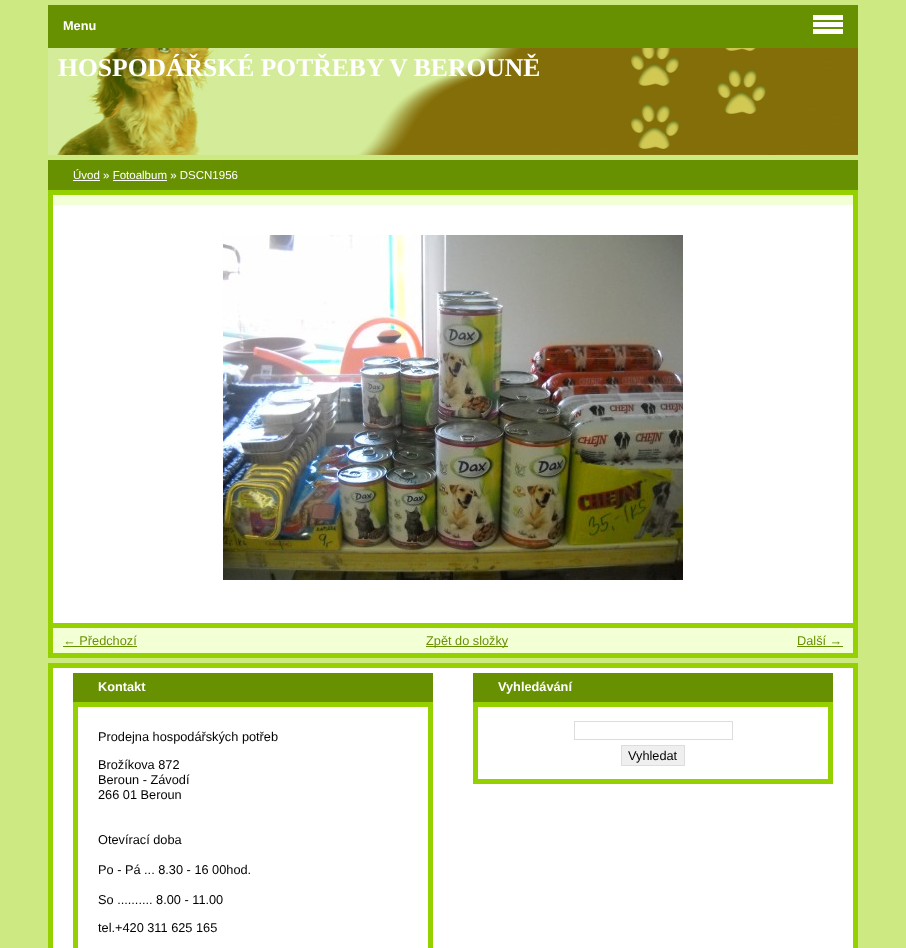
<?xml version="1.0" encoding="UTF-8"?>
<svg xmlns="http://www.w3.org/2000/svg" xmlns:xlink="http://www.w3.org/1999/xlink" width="906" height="948">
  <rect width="100%" height="100%" fill="#ccea81" />
  <rect x="48" y="5" width="810" height="43" fill="#689101" />
  <rect x="813" y="15" width="30" height="5" fill="#ffffff" />
  <rect x="813" y="22" width="30" height="5" fill="#ffffff" />
  <rect x="813" y="29" width="30" height="5" fill="#ffffff" />
  <rect x="50.5" y="665.5" width="805" height="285" fill="#ffffff" stroke="#95d001" stroke-width="5" />
  <rect x="73" y="673" width="360" height="29" fill="#689101" />
  <rect x="75.5" y="704.5" width="355" height="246" fill="none" stroke="#95d001" stroke-width="5" />
  <rect x="473" y="673" width="360" height="29" fill="#689101" />
  <rect x="475.5" y="704.5" width="355" height="77" fill="none" stroke="#95d001" stroke-width="5" />
  <rect x="574.5" y="721.5" width="158" height="18" fill="none" stroke="#dddddd" />
  <rect x="621.5" y="745.5" width="63" height="20" fill="#efefef" stroke="#dddddd" />
  <rect x="48" y="160" width="810" height="30" fill="#689101" />
  <rect x="73" y="180" width="27" height="1" fill="#ffffff" />
  <rect x="113" y="180" width="54" height="1" fill="#ffffff" />
  <rect x="53" y="205" width="800" height="418" fill="#ffffff" />
  <rect x="50.5" y="192.5" width="805" height="463" fill="none" stroke="#95d001" stroke-width="5" />
  <rect x="53" y="195" width="800" height="10" fill="#f3ffd5" />
  <image x="223" y="235" width="460" height="345" xlink:href="image1.png" />
  <rect x="53" y="628" width="800" height="25" fill="#f3ffd5" />
  <rect x="53" y="623" width="800" height="5" fill="#95d001" />
  <rect x="63" y="646" width="74" height="1" fill="#689101" />
  <rect x="426" y="646" width="82" height="1" fill="#689101" />
  <rect x="797" y="646" width="46" height="1" fill="#689101" />
  <image x="48" y="48" width="810" height="107" xlink:href="image2.png" />
  <rect x="48" y="48" width="810" height="107" fill="#94d001" fill-opacity="0.4" />
  <text x="63" y="30" style="font-family: Liberation Sans; font-size: 12.75px; font-weight: bold; fill: #ffffff">Menu</text>
  <text x="98" y="691" style="font-family: Liberation Sans; font-size: 12.75px; font-weight: bold; fill: #ffffff">Kontakt</text>
  <text x="98" y="741" style="font-family: Liberation Sans; font-size: 12.75px; fill: #000000">Prodejna hospodářských potřeb</text>
  <text x="98" y="769" style="font-family: Liberation Sans; font-size: 12.75px; fill: #000000">Brožíkova 872</text>
  <text x="98" y="784" style="font-family: Liberation Sans; font-size: 12.75px; fill: #000000">Beroun - Závodí</text>
  <text x="98" y="799" style="font-family: Liberation Sans; font-size: 12.75px; fill: #000000">266 01 Beroun</text>
  <text x="98" y="844" style="font-family: Liberation Sans; font-size: 12.75px; fill: #000000">Otevírací doba</text>
  <text x="98" y="874" style="font-family: Liberation Sans; font-size: 12.75px; fill: #000000">Po - Pá ... 8.30 - 16 00hod.</text>
  <text x="98" y="904" style="font-family: Liberation Sans; font-size: 12.75px; fill: #000000">So .......... 8.00 - 11.00</text>
  <text x="98" y="932" style="font-family: Liberation Sans; font-size: 12.75px; fill: #000000">tel.+420 311 625 165</text>
  <text x="498" y="691" style="font-family: Liberation Sans; font-size: 12.75px; font-weight: bold; fill: #ffffff">Vyhledávání</text>
  <text x="628" y="760" style="font-family: Liberation Sans; font-size: 12.75px; fill: #000000">Vyhledat</text>
  <text x="73" y="179" style="font-family: Liberation Sans; font-size: 11.5px; fill: #ffffff">Úvod » Fotoalbum » DSCN1956</text>
  <text x="63" y="645" style="font-family: Liberation Sans; font-size: 12.75px; fill: #689101">← Předchozí</text>
  <text x="426" y="645" style="font-family: Liberation Sans; font-size: 12.75px; fill: #689101">Zpět do složky</text>
  <text x="797" y="645" style="font-family: Liberation Sans; font-size: 12.75px; fill: #689101">Další →</text>
  <text x="58" y="76" style="font-family: Liberation Serif; font-size: 25.6px; font-weight: bold; fill: #ffffff">HOSPODÁŘSKÉ POTŘEBY V BEROUNĚ</text>
</svg>
